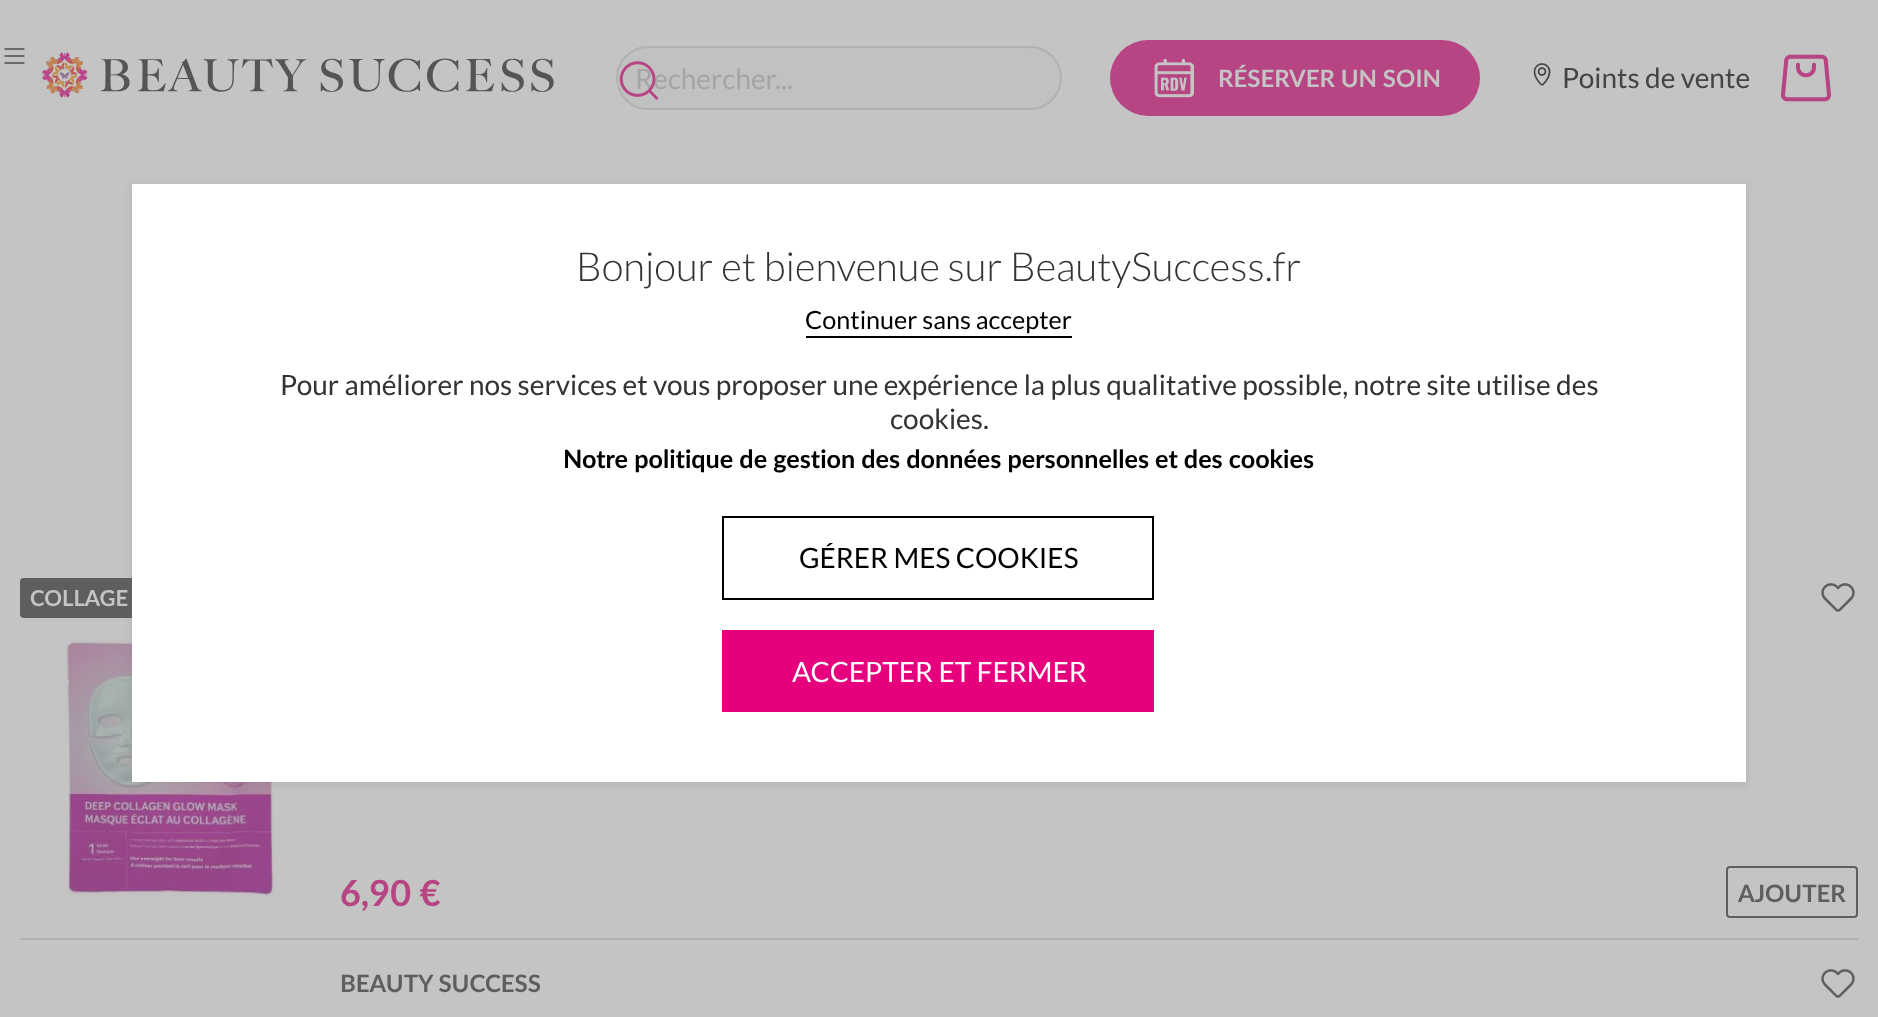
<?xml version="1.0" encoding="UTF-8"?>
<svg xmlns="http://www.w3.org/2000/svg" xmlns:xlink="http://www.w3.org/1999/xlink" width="1878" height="1017">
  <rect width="100%" height="100%" fill="#c4c4c4" />
  <image x="4" y="48" width="21" height="16" xlink:href="image1.png" />
  <image x="42" y="52" width="512" height="46" xlink:href="image2.png" />
  <rect x="617" y="47" width="444" height="62" rx="31" fill="#c1c1c1" stroke="#b1b1b1" stroke-width="2" />
  <rect x="1110" y="40" width="370" height="76" rx="38" fill="#b74483" />
  <image x="1154" y="58" width="40" height="40" xlink:href="image4.png" />
  <image x="1533" y="63" width="18" height="23" xlink:href="image5.png" />
  <image x="1781" y="54" width="50" height="48" xlink:href="image6.png" />
  <rect x="20" y="578" width="148" height="40" rx="4" fill="#5e5e5e" />
  <image x="61" y="636" width="214" height="260" xlink:href="image7.png" />
  <rect x="130" y="184" width="1618" height="602" fill="#777777" fill-opacity="0.15" filter="blur(3px)" />
  <rect x="132" y="184" width="1614" height="598" fill="#ffffff" />
  <rect x="806" y="336" width="266" height="2" fill="#000000" />
  <rect x="723" y="517" width="430" height="82" fill="none" stroke="#000000" stroke-width="2" />
  <rect x="722" y="630" width="432" height="82" fill="#e6007e" />
  <rect x="20" y="938" width="1838" height="2" fill="#b1b1b1" />
  <image x="1821" y="583" width="34" height="29" xlink:href="image8.png" />
  <rect x="1727" y="867" width="130" height="50" rx="3" fill="none" stroke="#5e5e5e" stroke-width="2" />
  <image x="1821" y="969" width="34" height="29" xlink:href="image8.png" />
  <rect x="197" y="1014" width="2" height="3" fill="#c4c4c1" />
  <text x="635" y="89" style="font-family: Lato; font-size: 28px; fill: #a5a5a5">Rechercher...</text>
  <image x="619" y="61" width="40" height="39" xlink:href="image3.png" />
  <text x="1218" y="87" style="font-family: Lato; font-size: 24px; font-weight: bold; fill: #c4c4c4">RÉSERVER UN SOIN</text>
  <text x="1562" y="88" style="font-family: Lato; font-size: 28px; fill: #444444">Points de vente</text>
  <text x="576" y="281" style="font-family: Lato; font-size: 40px; font-weight: 300; fill: #333333">Bonjour et bienvenue sur BeautySuccess.fr</text>
  <text x="805" y="329" style="font-family: Lato; font-size: 25.2px; fill: #000000">Continuer sans accepter</text>
  <text x="280" y="395" style="font-family: Lato; font-size: 28px; fill: #333333">Pour améliorer nos services et vous proposer une expérience la plus qualitative possible, notre site utilise des</text>
  <text x="890" y="429" style="font-family: Lato; font-size: 28px; fill: #333333">cookies.</text>
  <text x="563" y="468" style="font-family: Lato; font-size: 25.2px; font-weight: bold; fill: #000000">Notre politique de gestion des données personnelles et des cookies</text>
  <text x="799" y="568" style="font-family: Lato; font-size: 28px; fill: #000000">GÉRER MES COOKIES</text>
  <text x="792" y="682" style="font-family: Lato; font-size: 28px; fill: #ffffff">ACCEPTER ET FERMER</text>
  <text x="30" y="606" style="font-family: Lato; font-size: 22px; font-weight: bold; fill: #c4c4c4">COLLAGE</text>
  <text x="340" y="906" style="font-family: Lato; font-size: 36px; font-weight: bold; fill: #b74483">6,90 €</text>
  <text x="1738" y="902" style="font-family: Lato; font-size: 24px; font-weight: bold; fill: #5e5e5e">AJOUTER</text>
  <text x="340" y="992" style="font-family: Lato; font-size: 24px; font-weight: bold; fill: #5e5e5e">BEAUTY SUCCESS</text>
</svg>
